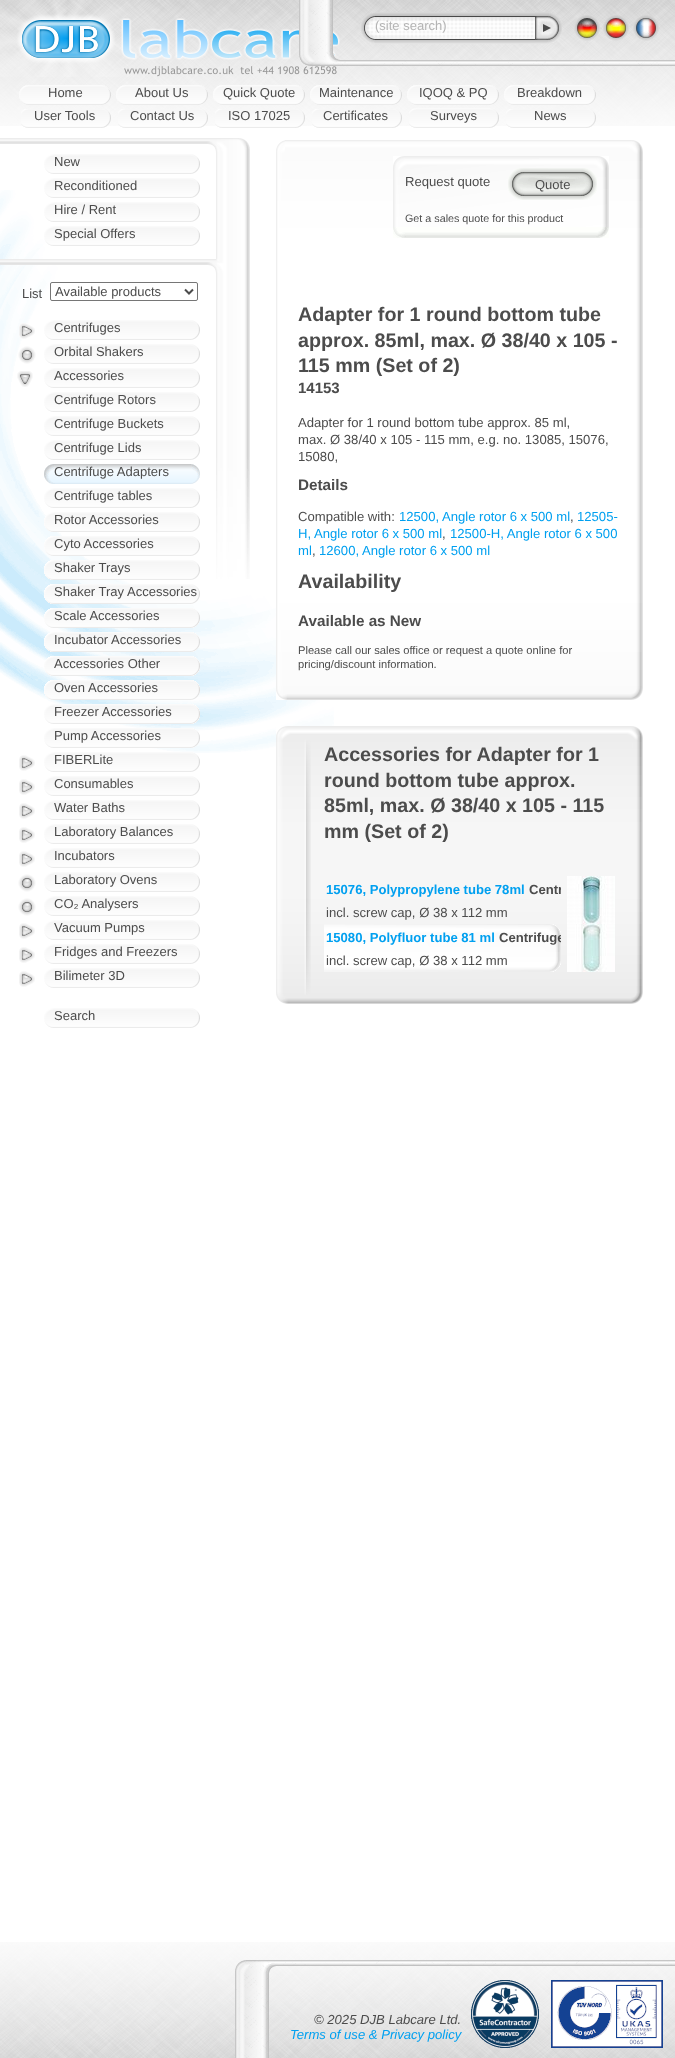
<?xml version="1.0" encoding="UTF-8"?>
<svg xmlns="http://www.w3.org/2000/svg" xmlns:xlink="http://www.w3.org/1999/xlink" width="675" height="2058">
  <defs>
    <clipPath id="clip1"><rect x="324" y="876" width="237" height="48" /></clipPath>
    <clipPath id="clip2"><rect x="324" y="924" width="237" height="48" /></clipPath>
  </defs>
  <rect width="100%" height="100%" fill="#ffffff" />
  <image x="0" y="190" width="334" height="563" xlink:href="image1.png" />
  <image x="0" y="0" width="675" height="126" xlink:href="image2.png" />
  <image x="0" y="0" width="340" height="77" xlink:href="image3.png" />
  <image x="299" y="0" width="376" height="66" xlink:href="image4.png" />
  <image x="360" y="13" width="15" height="30" xlink:href="image5.png" />
  <image x="375" y="12" width="160" height="32" xlink:href="image6.png" />
  <image x="535" y="12" width="27" height="32" xlink:href="image7.png" />
  <image x="574" y="15" width="26" height="26" xlink:href="image8.png" />
  <image x="603" y="15" width="26" height="26" xlink:href="image9.png" />
  <image x="633" y="15" width="26" height="26" xlink:href="image10.png" />
  <image x="19" y="85" width="92" height="20" xlink:href="image11.png" />
  <image x="116" y="85" width="92" height="20" xlink:href="image12.png" />
  <image x="213" y="85" width="92" height="20" xlink:href="image13.png" />
  <image x="310" y="85" width="92" height="20" xlink:href="image14.png" />
  <image x="407" y="85" width="92" height="20" xlink:href="image15.png" />
  <image x="504" y="85" width="92" height="20" xlink:href="image16.png" />
  <image x="21" y="109" width="90" height="19" xlink:href="image17.png" />
  <image x="118" y="109" width="90" height="19" xlink:href="image18.png" />
  <image x="215" y="109" width="90" height="19" xlink:href="image19.png" />
  <image x="312" y="109" width="90" height="19" xlink:href="image20.png" />
  <image x="409" y="108" width="90" height="20" xlink:href="image21.png" />
  <image x="506" y="109" width="90" height="19" xlink:href="image22.png" />
  <image x="0" y="138" width="250" height="441" xlink:href="image23.png" />
  <image x="44" y="154" width="156" height="20" xlink:href="image24.png" />
  <image x="44" y="178" width="156" height="20" xlink:href="image24.png" />
  <image x="44" y="202" width="156" height="20" xlink:href="image24.png" />
  <image x="44" y="226" width="156" height="20" xlink:href="image25.png" />
  <rect x="50.5" y="282.5" width="147" height="18" rx="1.5" fill="none" stroke="#767676" />
  <path d="M 185 289.5 l 4 4 l 4 -4" fill="none" stroke="#4c4c4c" stroke-width="2" />
  <image x="19" y="323" width="16" height="16" xlink:href="image26.png" />
  <image x="44" y="320" width="156" height="20" xlink:href="image24.png" />
  <image x="18" y="346" width="18" height="18" xlink:href="image27.png" />
  <image x="44" y="344" width="156" height="20" xlink:href="image24.png" />
  <image x="17" y="371" width="16" height="16" xlink:href="image28.png" />
  <image x="44" y="368" width="156" height="20" xlink:href="image24.png" />
  <image x="44" y="392" width="156" height="20" xlink:href="image24.png" />
  <image x="44" y="416" width="156" height="20" xlink:href="image24.png" />
  <image x="44" y="440" width="156" height="20" xlink:href="image24.png" />
  <image x="44" y="464" width="156" height="20" xlink:href="image29.png" />
  <image x="44" y="488" width="156" height="20" xlink:href="image24.png" />
  <image x="44" y="512" width="156" height="20" xlink:href="image30.png" />
  <image x="44" y="536" width="156" height="20" xlink:href="image31.png" />
  <image x="44" y="560" width="156" height="20" xlink:href="image32.png" />
  <image x="44" y="584" width="156" height="20" xlink:href="image33.png" />
  <image x="44" y="608" width="156" height="20" xlink:href="image34.png" />
  <image x="44" y="632" width="156" height="20" xlink:href="image35.png" />
  <image x="44" y="656" width="156" height="20" xlink:href="image36.png" />
  <image x="44" y="680" width="156" height="20" xlink:href="image37.png" />
  <image x="44" y="704" width="156" height="20" xlink:href="image38.png" />
  <image x="44" y="728" width="156" height="20" xlink:href="image39.png" />
  <image x="19" y="755" width="16" height="16" xlink:href="image40.png" />
  <image x="44" y="752" width="156" height="20" xlink:href="image41.png" />
  <image x="19" y="779" width="16" height="16" xlink:href="image40.png" />
  <image x="44" y="776" width="156" height="20" xlink:href="image24.png" />
  <image x="19" y="803" width="16" height="16" xlink:href="image40.png" />
  <image x="44" y="800" width="156" height="20" xlink:href="image24.png" />
  <image x="19" y="827" width="16" height="16" xlink:href="image40.png" />
  <image x="44" y="824" width="156" height="20" xlink:href="image24.png" />
  <image x="19" y="851" width="16" height="16" xlink:href="image40.png" />
  <image x="44" y="848" width="156" height="20" xlink:href="image24.png" />
  <image x="18" y="874" width="18" height="18" xlink:href="image42.png" />
  <image x="44" y="872" width="156" height="20" xlink:href="image24.png" />
  <image x="18" y="898" width="18" height="18" xlink:href="image42.png" />
  <image x="44" y="896" width="156" height="20" xlink:href="image24.png" />
  <image x="19" y="923" width="16" height="16" xlink:href="image40.png" />
  <image x="44" y="920" width="156" height="20" xlink:href="image24.png" />
  <image x="19" y="947" width="16" height="16" xlink:href="image40.png" />
  <image x="44" y="944" width="156" height="20" xlink:href="image24.png" />
  <image x="19" y="971" width="16" height="16" xlink:href="image40.png" />
  <image x="44" y="968" width="156" height="20" xlink:href="image24.png" />
  <image x="44" y="1008" width="156" height="20" xlink:href="image24.png" />
  <image x="278" y="246" width="365" height="348" xlink:href="image43.png" />
  <image x="276" y="246" width="2" height="348" xlink:href="image44.png" />
  <image x="287" y="594" width="356" height="106" xlink:href="image45.png" />
  <image x="276" y="594" width="11" height="106" xlink:href="image46.png" />
  <image x="285" y="140" width="358" height="106" xlink:href="image47.png" />
  <image x="276" y="140" width="9" height="106" xlink:href="image48.png" />
  <image x="393" y="156" width="216" height="71" xlink:href="image49.png" />
  <image x="393" y="227" width="216" height="11" xlink:href="image50.png" />
  <image x="508" y="168" width="89" height="32" xlink:href="image51.png" />
  <image x="311" y="832" width="332" height="66" xlink:href="image52.png" />
  <image x="276" y="832" width="35" height="66" xlink:href="image53.png" />
  <image x="311" y="898" width="332" height="106" xlink:href="image54.png" />
  <image x="276" y="898" width="35" height="106" xlink:href="image55.png" />
  <image x="311" y="726" width="332" height="106" xlink:href="image56.png" />
  <image x="276" y="726" width="35" height="106" xlink:href="image57.png" />
  <image x="567" y="876" width="48" height="48" xlink:href="image58.png" />
  <image x="324" y="924" width="237" height="48" xlink:href="image59.png" />
  <image x="567" y="924" width="48" height="48" xlink:href="image60.png" />
  <image x="0" y="1942" width="675" height="116" xlink:href="image61.png" />
  <image x="235" y="1960" width="440" height="98" xlink:href="image62.png" />
  <image x="471" y="1980" width="68" height="68" xlink:href="image63.png" />
  <image x="551" y="1980" width="112" height="68" xlink:href="image64.png" />
  <text x="375" y="30" style="font-family: Liberation Sans; font-size: 13px; fill: #b4b4b4">(site search)</text>
  <text x="48" y="97" style="font-family: Liberation Sans; font-size: 13px; fill: #4c4c4c">Home</text>
  <text x="135" y="97" style="font-family: Liberation Sans; font-size: 13px; fill: #4c4c4c">About Us</text>
  <text x="223" y="97" style="font-family: Liberation Sans; font-size: 13px; fill: #4c4c4c">Quick Quote</text>
  <text x="319" y="97" style="font-family: Liberation Sans; font-size: 13px; fill: #4c4c4c">Maintenance</text>
  <text x="419" y="97" style="font-family: Liberation Sans; font-size: 13px; fill: #4c4c4c">IQOQ &amp; PQ</text>
  <text x="517" y="97" style="font-family: Liberation Sans; font-size: 13px; fill: #4c4c4c">Breakdown</text>
  <text x="34" y="120" style="font-family: Liberation Sans; font-size: 13px; fill: #4c4c4c">User Tools</text>
  <text x="130" y="120" style="font-family: Liberation Sans; font-size: 13px; fill: #4c4c4c">Contact Us</text>
  <text x="228" y="120" style="font-family: Liberation Sans; font-size: 13px; fill: #4c4c4c">ISO 17025</text>
  <text x="323" y="120" style="font-family: Liberation Sans; font-size: 13px; fill: #4c4c4c">Certificates</text>
  <text x="430" y="120" style="font-family: Liberation Sans; font-size: 13px; fill: #4c4c4c">Surveys</text>
  <text x="534" y="120" style="font-family: Liberation Sans; font-size: 13px; fill: #4c4c4c">News</text>
  <text x="54" y="166" style="font-family: Liberation Sans; font-size: 13px; fill: #4c4c4c">New</text>
  <text x="54" y="190" style="font-family: Liberation Sans; font-size: 13px; fill: #4c4c4c">Reconditioned</text>
  <text x="54" y="214" style="font-family: Liberation Sans; font-size: 13px; fill: #4c4c4c">Hire / Rent</text>
  <text x="54" y="238" style="font-family: Liberation Sans; font-size: 13px; fill: #4c4c4c">Special Offers</text>
  <text x="22" y="298" style="font-family: Liberation Sans; font-size: 13px; fill: #4c4c4c">List</text>
  <text x="55" y="296" style="font-family: Liberation Sans; font-size: 13px; fill: #4c4c4c">Available products</text>
  <text x="54" y="332" style="font-family: Liberation Sans; font-size: 13px; fill: #4c4c4c">Centrifuges</text>
  <text x="54" y="356" style="font-family: Liberation Sans; font-size: 13px; fill: #4c4c4c">Orbital Shakers</text>
  <text x="54" y="380" style="font-family: Liberation Sans; font-size: 13px; fill: #4c4c4c">Accessories</text>
  <text x="54" y="404" style="font-family: Liberation Sans; font-size: 13px; fill: #4c4c4c">Centrifuge Rotors</text>
  <text x="54" y="428" style="font-family: Liberation Sans; font-size: 13px; fill: #4c4c4c">Centrifuge Buckets</text>
  <text x="54" y="452" style="font-family: Liberation Sans; font-size: 13px; fill: #4c4c4c">Centrifuge Lids</text>
  <text x="54" y="476" style="font-family: Liberation Sans; font-size: 13px; fill: #4c4c4c">Centrifuge Adapters</text>
  <text x="54" y="500" style="font-family: Liberation Sans; font-size: 13px; fill: #4c4c4c">Centrifuge tables</text>
  <text x="54" y="524" style="font-family: Liberation Sans; font-size: 13px; fill: #4c4c4c">Rotor Accessories</text>
  <text x="54" y="548" style="font-family: Liberation Sans; font-size: 13px; fill: #4c4c4c">Cyto Accessories</text>
  <text x="54" y="572" style="font-family: Liberation Sans; font-size: 13px; fill: #4c4c4c">Shaker Trays</text>
  <text x="54" y="596" style="font-family: Liberation Sans; font-size: 13px; fill: #4c4c4c">Shaker Tray Accessories</text>
  <text x="54" y="620" style="font-family: Liberation Sans; font-size: 13px; fill: #4c4c4c">Scale Accessories</text>
  <text x="54" y="644" style="font-family: Liberation Sans; font-size: 13px; fill: #4c4c4c">Incubator Accessories</text>
  <text x="54" y="668" style="font-family: Liberation Sans; font-size: 13px; fill: #4c4c4c">Accessories Other</text>
  <text x="54" y="692" style="font-family: Liberation Sans; font-size: 13px; fill: #4c4c4c">Oven Accessories</text>
  <text x="54" y="716" style="font-family: Liberation Sans; font-size: 13px; fill: #4c4c4c">Freezer Accessories</text>
  <text x="54" y="740" style="font-family: Liberation Sans; font-size: 13px; fill: #4c4c4c">Pump Accessories</text>
  <text x="54" y="764" style="font-family: Liberation Sans; font-size: 13px; fill: #4c4c4c">FIBERLite</text>
  <text x="54" y="788" style="font-family: Liberation Sans; font-size: 13px; fill: #4c4c4c">Consumables</text>
  <text x="54" y="812" style="font-family: Liberation Sans; font-size: 13px; fill: #4c4c4c">Water Baths</text>
  <text x="54" y="836" style="font-family: Liberation Sans; font-size: 13px; fill: #4c4c4c">Laboratory Balances</text>
  <text x="54" y="860" style="font-family: Liberation Sans; font-size: 13px; fill: #4c4c4c">Incubators</text>
  <text x="54" y="884" style="font-family: Liberation Sans; font-size: 13px; fill: #4c4c4c">Laboratory Ovens</text>
  <text x="54" y="908" style="font-family: Liberation Sans; font-size: 13px; fill: #4c4c4c">CO₂ Analysers</text>
  <text x="54" y="932" style="font-family: Liberation Sans; font-size: 13px; fill: #4c4c4c">Vacuum Pumps</text>
  <text x="54" y="956" style="font-family: Liberation Sans; font-size: 13px; fill: #4c4c4c">Fridges and Freezers</text>
  <text x="54" y="980" style="font-family: Liberation Sans; font-size: 13px; fill: #4c4c4c">Bilimeter 3D</text>
  <text x="54" y="1020" style="font-family: Liberation Sans; font-size: 13px; fill: #4c4c4c">Search</text>
  <text x="405" y="186" style="font-family: Liberation Sans; font-size: 13.1px; fill: #4c4c4c">Request quote</text>
  <text x="535" y="189" style="font-family: Liberation Sans; font-size: 13px; fill: #4c4c4c">Quote</text>
  <text x="405" y="222" style="font-family: Liberation Sans; font-size: 10.75px; fill: #4c4c4c">Get a sales quote for this product</text>
  <text x="298" y="321" style="font-family: Liberation Sans; font-size: 19.7px; font-weight: bold; fill: #4c4c4c">Adapter for 1 round bottom tube</text>
  <text x="298" y="347" style="font-family: Liberation Sans; font-size: 19.7px; font-weight: bold; fill: #4c4c4c">approx. 85ml, max. Ø 38/40 x 105 -</text>
  <text x="298" y="372" style="font-family: Liberation Sans; font-size: 19.7px; font-weight: bold; fill: #4c4c4c">115 mm (Set of 2)</text>
  <text x="298" y="393" style="font-family: Liberation Sans; font-size: 15px; font-weight: bold; fill: #4c4c4c">14153</text>
  <text x="298" y="427" style="font-family: Liberation Sans; font-size: 13.1px; fill: #4c4c4c">Adapter for 1 round bottom tube approx. 85 ml,</text>
  <text x="298" y="444" style="font-family: Liberation Sans; font-size: 13.1px; fill: #4c4c4c">max. Ø 38/40 x 105 - 115 mm, e.g. no. 13085, 15076,</text>
  <text x="298" y="461" style="font-family: Liberation Sans; font-size: 13.1px; fill: #4c4c4c">15080,</text>
  <text x="298" y="490" style="font-family: Liberation Sans; font-size: 15.25px; font-weight: bold; fill: #4c4c4c">Details</text>
  <text x="298" y="521" style="font-family: Liberation Sans; font-size: 13.1px; fill: #4c4c4c">Compatible with:</text>
  <text x="399" y="521" style="font-family: Liberation Sans; font-size: 13.1px; fill: #00a0f0">12500, Angle rotor 6 x 500 ml</text>
  <text x="570" y="521" style="font-family: Liberation Sans; font-size: 13.1px; fill: #4c4c4c">,</text>
  <text x="577" y="521" style="font-family: Liberation Sans; font-size: 13.1px; fill: #00a0f0">12505-</text>
  <text x="298" y="538" style="font-family: Liberation Sans; font-size: 13.1px; fill: #00a0f0">H, Angle rotor 6 x 500 ml</text>
  <text x="442" y="538" style="font-family: Liberation Sans; font-size: 13.1px; fill: #4c4c4c">,</text>
  <text x="450" y="538" style="font-family: Liberation Sans; font-size: 13.1px; fill: #00a0f0">12500-H, Angle rotor 6 x 500</text>
  <text x="298" y="555" style="font-family: Liberation Sans; font-size: 13.1px; fill: #00a0f0">ml</text>
  <text x="312" y="555" style="font-family: Liberation Sans; font-size: 13.1px; fill: #4c4c4c">,</text>
  <text x="319" y="555" style="font-family: Liberation Sans; font-size: 13.1px; fill: #00a0f0">12600, Angle rotor 6 x 500 ml</text>
  <text x="298" y="588" style="font-family: Liberation Sans; font-size: 19.7px; font-weight: bold; fill: #4c4c4c">Availability</text>
  <text x="298" y="626" style="font-family: Liberation Sans; font-size: 15.25px; font-weight: bold; fill: #4c4c4c">Available as New</text>
  <text x="298" y="654" style="font-family: Liberation Sans; font-size: 11.15px; fill: #4c4c4c">Please call our sales office or request a quote online for</text>
  <text x="298" y="668" style="font-family: Liberation Sans; font-size: 11.15px; fill: #4c4c4c">pricing/discount information.</text>
  <text x="324" y="761" style="font-family: Liberation Sans; font-size: 19.7px; font-weight: bold; fill: #4c4c4c">Accessories for Adapter for 1</text>
  <text x="324" y="787" style="font-family: Liberation Sans; font-size: 19.7px; font-weight: bold; fill: #4c4c4c">round bottom tube approx.</text>
  <text x="324" y="812" style="font-family: Liberation Sans; font-size: 19.7px; font-weight: bold; fill: #4c4c4c">85ml, max. Ø 38/40 x 105 - 115</text>
  <text x="324" y="838" style="font-family: Liberation Sans; font-size: 19.7px; font-weight: bold; fill: #4c4c4c">mm (Set of 2)</text>
  <text x="326" y="894" style="font-family: Liberation Sans; font-size: 13.1px; font-weight: bold; fill: #00a0f0">15076, Polypropylene tube 78ml</text>
  <g clip-path="url(#clip1)">
    <text x="529" y="894" style="font-family: Liberation Sans; font-size: 13.1px; font-weight: bold; fill: #4c4c4c">Centr</text>
  </g>
  <text x="326" y="917" style="font-family: Liberation Sans; font-size: 13.1px; fill: #4c4c4c">incl. screw cap, Ø 38 x 112 mm</text>
  <text x="326" y="942" style="font-family: Liberation Sans; font-size: 13.1px; font-weight: bold; fill: #00a0f0">15080, Polyfluor tube 81 ml</text>
  <g clip-path="url(#clip2)">
    <text x="499" y="942" style="font-family: Liberation Sans; font-size: 13.1px; font-weight: bold; fill: #4c4c4c">Centrifuge</text>
  </g>
  <text x="326" y="965" style="font-family: Liberation Sans; font-size: 13.1px; fill: #4c4c4c">incl. screw cap, Ø 38 x 112 mm</text>
  <text x="314" y="2024" style="font-family: Liberation Sans; font-size: 13.1px; font-style: italic; fill: #4c4c4c">© 2025 DJB Labcare Ltd.</text>
  <text x="290" y="2039" style="font-family: Liberation Sans; font-size: 13.1px; font-style: italic; fill: #00a0f0">Terms of use &amp; Privacy policy</text>
</svg>
